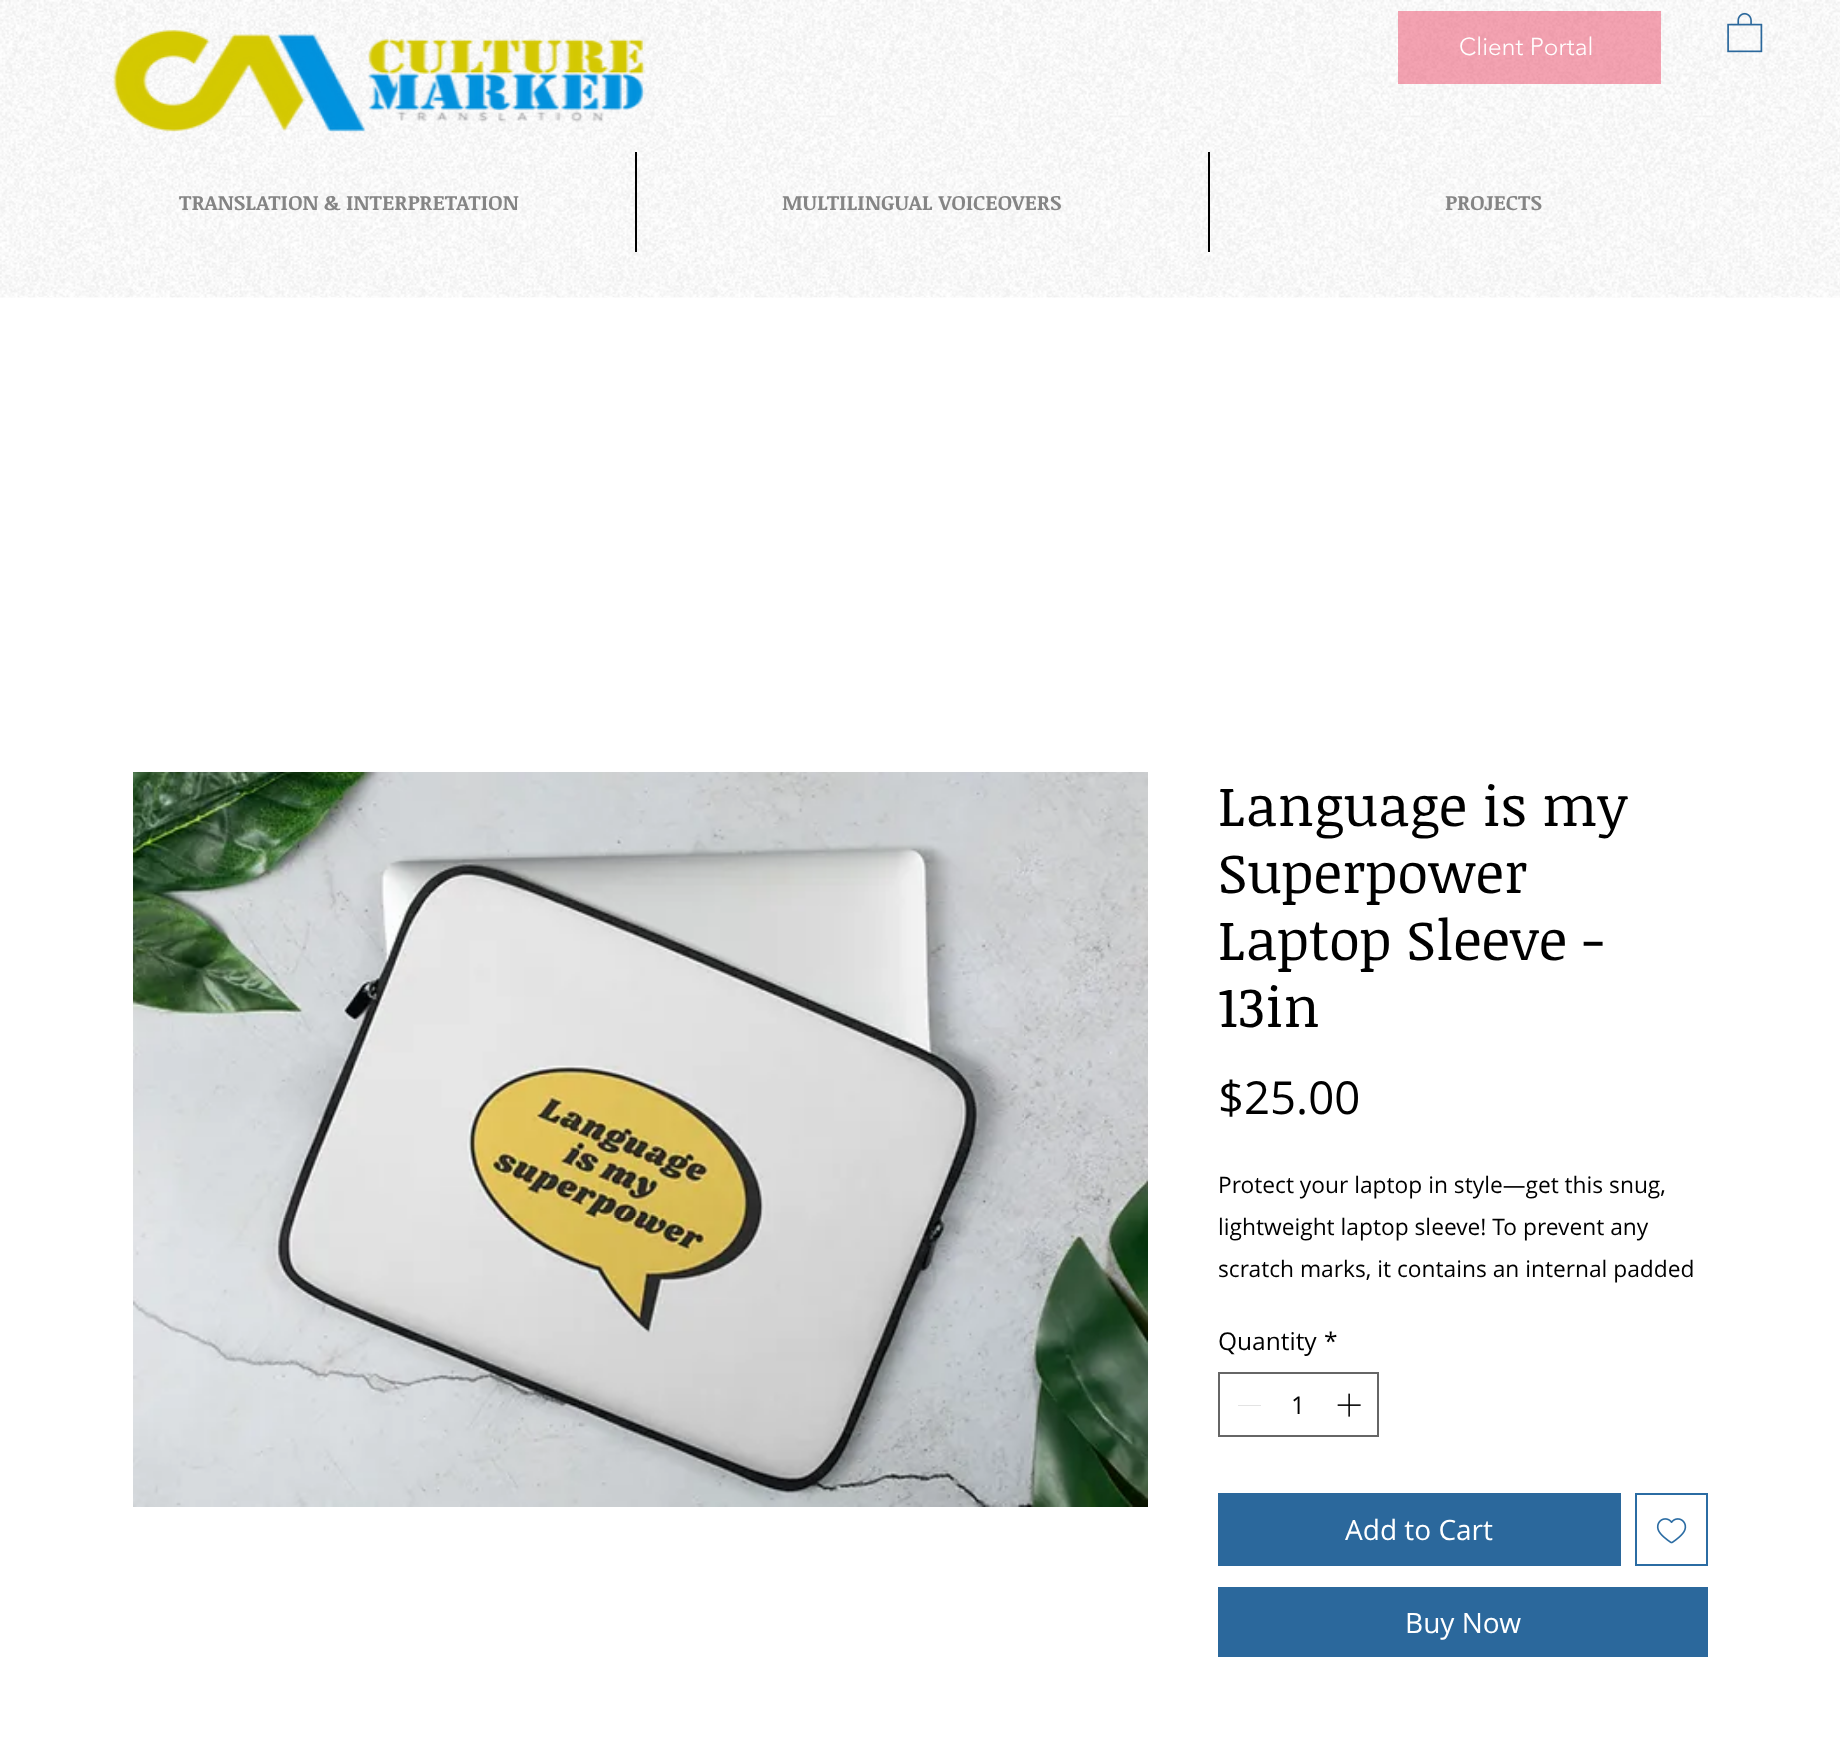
<?xml version="1.0" encoding="UTF-8"?>
<svg xmlns="http://www.w3.org/2000/svg" xmlns:xlink="http://www.w3.org/1999/xlink" width="1840" height="1746">
  <rect width="100%" height="100%" fill="#ffffff" />
  <image x="0" y="0" width="1840" height="298" xlink:href="image1.png" />
  <image x="113" y="29" width="532" height="103" xlink:href="image2.png" />
  <rect x="1398" y="11" width="263" height="73" fill="#e83556" fill-opacity="0.45" />
  <image x="1727" y="12" width="36" height="41" xlink:href="image3.png" />
  <rect x="635" y="152" width="2" height="100" fill="#000000" />
  <rect x="1208" y="152" width="2" height="100" fill="#000000" />
  <image x="133" y="772" width="1015" height="735" xlink:href="image4.png" />
  <rect x="1219" y="1373" width="159" height="63" fill="none" stroke="#666666" stroke-width="2" />
  <rect x="1238" y="1405" width="23" height="1" fill="#e3e3e3" />
  <image x="1337" y="1393" width="24" height="24" xlink:href="image5.png" />
  <rect x="1218" y="1493" width="403" height="73" fill="#2b689c" />
  <rect x="1636" y="1494" width="71" height="71" fill="none" stroke="#2b6ca3" stroke-width="2" />
  <image x="1656" y="1518" width="31" height="26" xlink:href="image6.png" />
  <rect x="1218" y="1587" width="490" height="70" fill="#2b689c" />
  <text x="1459" y="55" style="font-family: 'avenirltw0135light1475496'; font-size: 24.5px; font-weight: 300; fill: #ffffff">Client Portal</text>
  <text x="179" y="210" style="font-family: Noticia Text; font-size: 21px; font-weight: bold; fill: #858585">TRANSLATION &amp; INTERPRETATION</text>
  <text x="782" y="210" style="font-family: Noticia Text; font-size: 21px; font-weight: bold; fill: #858585">MULTILINGUAL VOICEOVERS</text>
  <text x="1445" y="210" style="font-family: Noticia Text; font-size: 21px; font-weight: bold; fill: #858585">PROJECTS</text>
  <text x="1218" y="826" style="font-family: Noticia Text; font-size: 56px; fill: #000000">Language is my</text>
  <text x="1218" y="893" style="font-family: Noticia Text; font-size: 56px; fill: #000000">Superpower</text>
  <text x="1218" y="960" style="font-family: Noticia Text; font-size: 56px; fill: #000000">Laptop Sleeve -</text>
  <text x="1218" y="1027" style="font-family: Noticia Text; font-size: 56px; fill: #000000">13in</text>
  <text x="1218" y="1114" style="font-family: Open Sans; font-size: 45.5px; fill: #000000">$25.00</text>
  <text x="1218" y="1193" style="font-family: Open Sans; font-size: 22.75px; fill: #000000">Protect your laptop in style—get this snug,</text>
  <text x="1218" y="1235" style="font-family: Open Sans; font-size: 22.75px; fill: #000000">lightweight laptop sleeve! To prevent any</text>
  <text x="1218" y="1277" style="font-family: Open Sans; font-size: 22.75px; fill: #000000">scratch marks, it contains an internal padded</text>
  <text x="1218" y="1350" style="font-family: Open Sans; font-size: 24.5px; fill: #000000">Quantity</text>
  <text x="1324" y="1350" style="font-family: Open Sans; font-size: 24.5px; fill: #000000">*</text>
  <text x="1291" y="1414" style="font-family: Open Sans; font-size: 24.5px; fill: #000000">1</text>
  <text x="1345" y="1540" style="font-family: Open Sans; font-size: 28px; fill: #ffffff">Add to Cart</text>
  <text x="1405" y="1633" style="font-family: Open Sans; font-size: 28px; fill: #ffffff">Buy Now</text>
</svg>
